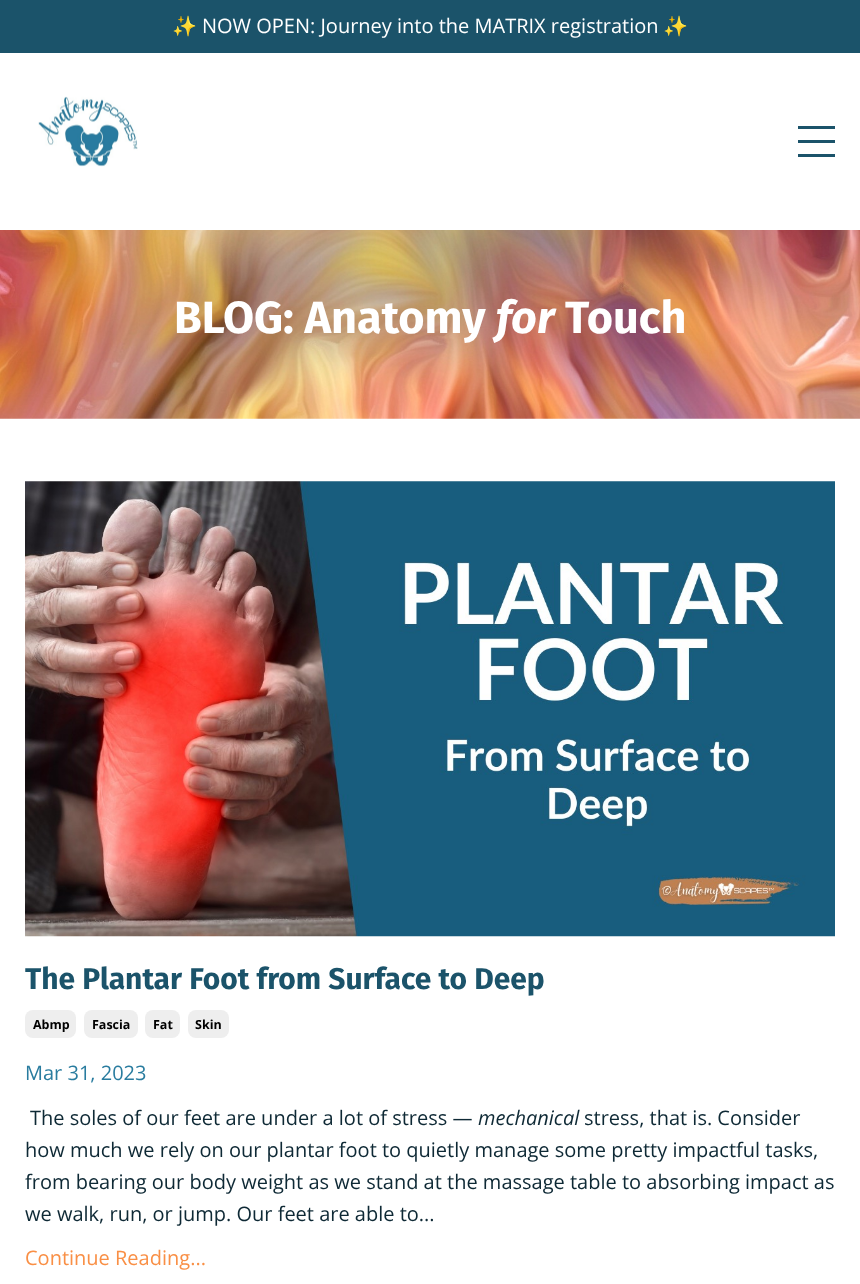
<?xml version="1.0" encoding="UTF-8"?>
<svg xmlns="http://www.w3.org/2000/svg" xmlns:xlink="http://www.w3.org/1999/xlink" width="860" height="1284">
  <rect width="100%" height="100%" fill="#ffffff" />
  <rect width="860" height="53" fill="#1b536a" />
  <image x="38" y="96" width="100" height="71" xlink:href="image1.png" />
  <rect x="798" y="126" width="37" height="3" fill="#1b536a" />
  <rect x="798" y="140" width="37" height="3" fill="#1b536a" />
  <rect x="798" y="154" width="37" height="3" fill="#1b536a" />
  <image x="0" y="230" width="860" height="189" xlink:href="image2.png" />
  <image x="25" y="481" width="810" height="456" xlink:href="image3.png" />
  <rect x="25" y="1010" width="51" height="28" rx="8" fill="#eeeeee" />
  <rect x="84" y="1010" width="54" height="28" rx="8" fill="#eeeeee" />
  <rect x="145" y="1010" width="35" height="28" rx="8" fill="#eeeeee" />
  <rect x="188" y="1010" width="41" height="28" rx="8" fill="#eeeeee" />
  <text x="172" y="33" style="font-family: Noto Color Emoji; font-size: 20px; fill: #ffffff">✨</text>
  <text x="202" y="33" style="font-family: Open Sans; font-size: 20px; fill: #ffffff">NOW OPEN: Journey into the MATRIX registration</text>
  <text x="663" y="33" style="font-family: Noto Color Emoji; font-size: 20px; fill: #ffffff">✨</text>
  <text x="174" y="333" style="font-family: Fira Sans; font-size: 45px; font-weight: bold; fill: #ffffff">BLOG: Anatomy</text>
  <text x="496" y="333" style="font-family: Fira Sans; font-size: 45px; font-weight: bold; font-style: italic; fill: #ffffff">for</text>
  <text x="565" y="333" style="font-family: Fira Sans; font-size: 45px; font-weight: bold; fill: #ffffff">Touch</text>
  <text x="25" y="989" style="font-family: Fira Sans; font-size: 30px; font-weight: bold; fill: #1b536a">The Plantar Foot from Surface to Deep</text>
  <text x="33" y="1029" style="font-family: Open Sans; font-size: 12.5px; font-weight: bold; fill: #000000">Abmp</text>
  <text x="92" y="1029" style="font-family: Open Sans; font-size: 12.5px; font-weight: bold; fill: #000000">Fascia</text>
  <text x="153" y="1029" style="font-family: Open Sans; font-size: 12.5px; font-weight: bold; fill: #000000">Fat</text>
  <text x="195" y="1029" style="font-family: Open Sans; font-size: 12.5px; font-weight: bold; fill: #000000">Skin</text>
  <text x="25" y="1080" style="font-family: Open Sans; font-size: 20px; fill: #297c9f">Mar 31, 2023</text>
  <text x="30" y="1125" style="font-family: Open Sans; font-size: 20px; fill: #0e2935">The soles of our feet are under a lot of stress —</text>
  <text x="478" y="1125" style="font-family: Open Sans; font-size: 20px; font-style: italic; fill: #0e2935">mechanical</text>
  <text x="584" y="1125" style="font-family: Open Sans; font-size: 20px; fill: #0e2935">stress, that is. Consider</text>
  <text x="25" y="1157" style="font-family: Open Sans; font-size: 20px; fill: #0e2935">how much we rely on our plantar foot to quietly manage some pretty impactful tasks,</text>
  <text x="25" y="1189" style="font-family: Open Sans; font-size: 20px; fill: #0e2935">from bearing our body weight as we stand at the massage table to absorbing impact as</text>
  <text x="25" y="1221" style="font-family: Open Sans; font-size: 20px; fill: #0e2935">we walk, run, or jump. Our feet are able to...</text>
  <text x="25" y="1265" style="font-family: Open Sans; font-size: 20px; fill: #f98f45">Continue Reading...</text>
</svg>
